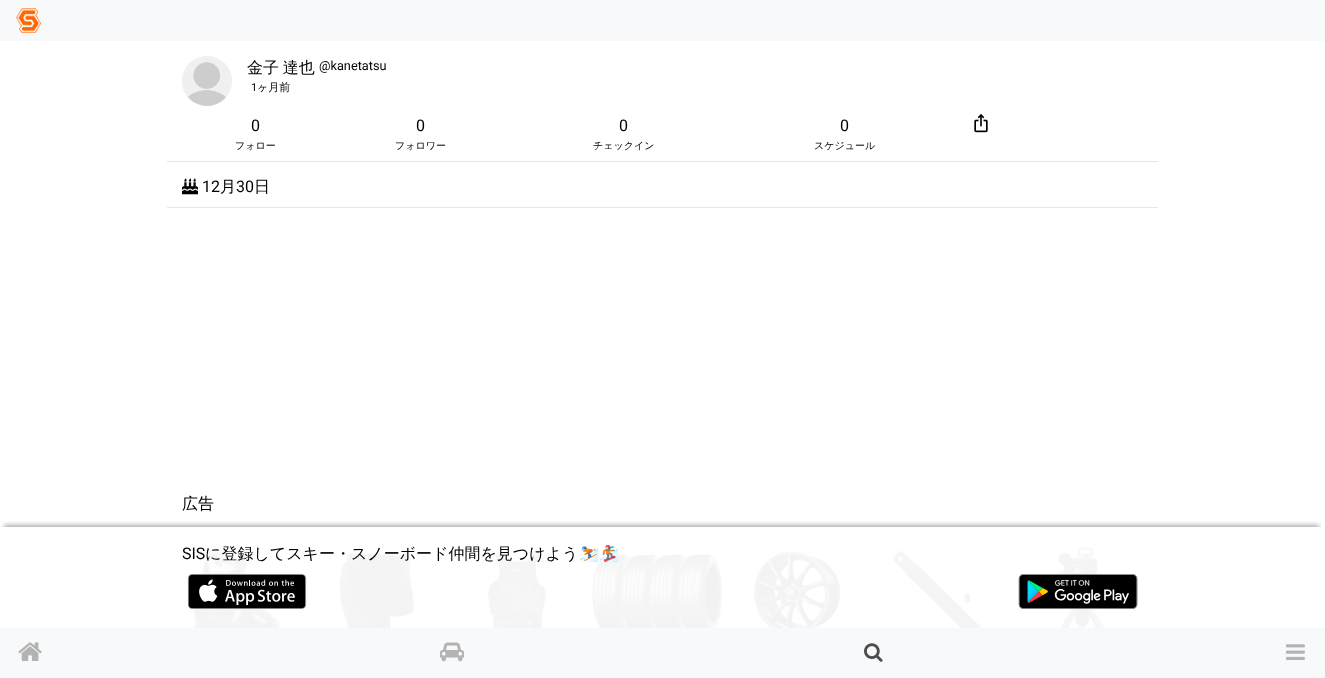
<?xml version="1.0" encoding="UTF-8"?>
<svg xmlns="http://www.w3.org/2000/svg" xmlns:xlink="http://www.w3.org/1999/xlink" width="1325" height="678">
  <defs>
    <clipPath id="clip1"><rect x="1" y="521" width="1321" height="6" /></clipPath>
  </defs>
  <rect width="100%" height="100%" fill="#ffffff" />
  <rect width="1325" height="41" fill="#f8f9fa" />
  <image x="16" y="8" width="25" height="25" xlink:href="image1.png" />
  <circle cx="207" cy="81" r="25" fill="#f0f0f0" />
  <image x="182" y="62" width="50" height="44" xlink:href="image2.png" />
  <rect x="167" y="161" width="991" height="1" fill="#e6e6e6" />
  <image x="974" y="114" width="14" height="19" xlink:href="image3.png" />
  <rect x="167" y="207" width="991" height="1" fill="#e6e6e6" />
  <image x="182" y="178" width="16" height="17" xlink:href="image4.png" />
  <image x="192" y="551" width="90" height="77" xlink:href="image5.png" />
  <image x="339" y="551" width="76" height="77" xlink:href="image6.png" />
  <image x="487" y="551" width="60" height="77" xlink:href="image7.png" />
  <image x="592" y="554" width="130" height="74" xlink:href="image8.png" />
  <image x="751" y="551" width="92" height="77" xlink:href="image9.png" />
  <image x="892" y="551" width="90" height="77" xlink:href="image10.png" />
  <image x="1056" y="547" width="53" height="81" xlink:href="image11.png" />
  <g clip-path="url(#clip1)">
    <rect x="4" y="525" width="1315" height="95" fill="#000000" fill-opacity="0.33" filter="blur(2.5px)" />
  </g>
  <image x="187" y="574" width="120" height="35" xlink:href="image12.png" />
  <image x="1018" y="574" width="120" height="35" xlink:href="image13.png" />
  <rect y="628" width="1325" height="50" fill="#f8f9fa" />
  <image x="18" y="642" width="24" height="19" xlink:href="image14.png" />
  <image x="440" y="642" width="24" height="20" xlink:href="image15.png" />
  <image x="864" y="643" width="19" height="19" xlink:href="image16.png" />
  <image x="1286" y="644" width="19" height="16" xlink:href="image17.png" />
  <text x="247" y="73" word-spacing="-1" style="font-family: WenQuanYi Zen Hei; font-size: 16px; font-weight: 500; fill: #000000">金子 達也</text>
  <text x="319" y="70" style="font-family: Roboto; font-size: 12.75px; fill: #000000">@kanetatsu</text>
  <text x="251" y="91" style="font-family: Roboto; font-size: 11px; fill: #000000">1</text>
  <text x="257" y="91" style="font-family: WenQuanYi Zen Hei; font-size: 11px; font-weight: 500; fill: #000000">ヶ月前</text>
  <text x="251" y="131" style="font-family: Roboto; font-size: 16px; fill: #000000">0</text>
  <text x="235" y="149" style="font-family: WenQuanYi Zen Hei; font-size: 10px; font-weight: 500; fill: #000000">フォロー</text>
  <text x="416" y="131" style="font-family: Roboto; font-size: 16px; fill: #000000">0</text>
  <text x="395" y="149" style="font-family: WenQuanYi Zen Hei; font-size: 10px; font-weight: 500; fill: #000000">フォロワー</text>
  <text x="619" y="131" style="font-family: Roboto; font-size: 16px; fill: #000000">0</text>
  <text x="593" y="149" style="font-family: WenQuanYi Zen Hei; font-size: 10px; font-weight: 500; fill: #000000">チェックイン</text>
  <text x="840" y="131" style="font-family: Roboto; font-size: 16px; fill: #000000">0</text>
  <text x="814" y="149" style="font-family: WenQuanYi Zen Hei; font-size: 10px; font-weight: 500; fill: #000000">スケジュール</text>
  <text x="202" y="192" style="font-family: Roboto; font-size: 16px; fill: #000000">12</text>
  <text x="220" y="192" style="font-family: WenQuanYi Zen Hei; font-size: 16px; font-weight: 500; fill: #000000">月</text>
  <text x="236" y="192" style="font-family: Roboto; font-size: 16px; fill: #000000">30</text>
  <text x="254" y="192" style="font-family: WenQuanYi Zen Hei; font-size: 16px; font-weight: 500; fill: #000000">日</text>
  <text x="182" y="509" style="font-family: WenQuanYi Zen Hei; font-size: 16px; font-weight: 500; fill: #000000">広告</text>
  <text x="182" y="559" style="font-family: Roboto; font-size: 16px; fill: #000000">SIS</text>
  <text x="205" y="559" style="font-family: WenQuanYi Zen Hei; font-size: 16px; font-weight: 500; fill: #000000">に登録してスキー・スノーボード仲間を見つけよう</text>
  <text x="579" y="559" style="font-family: Noto Color Emoji; font-size: 16px; fill: #000000">⛷️🏂</text>
</svg>
